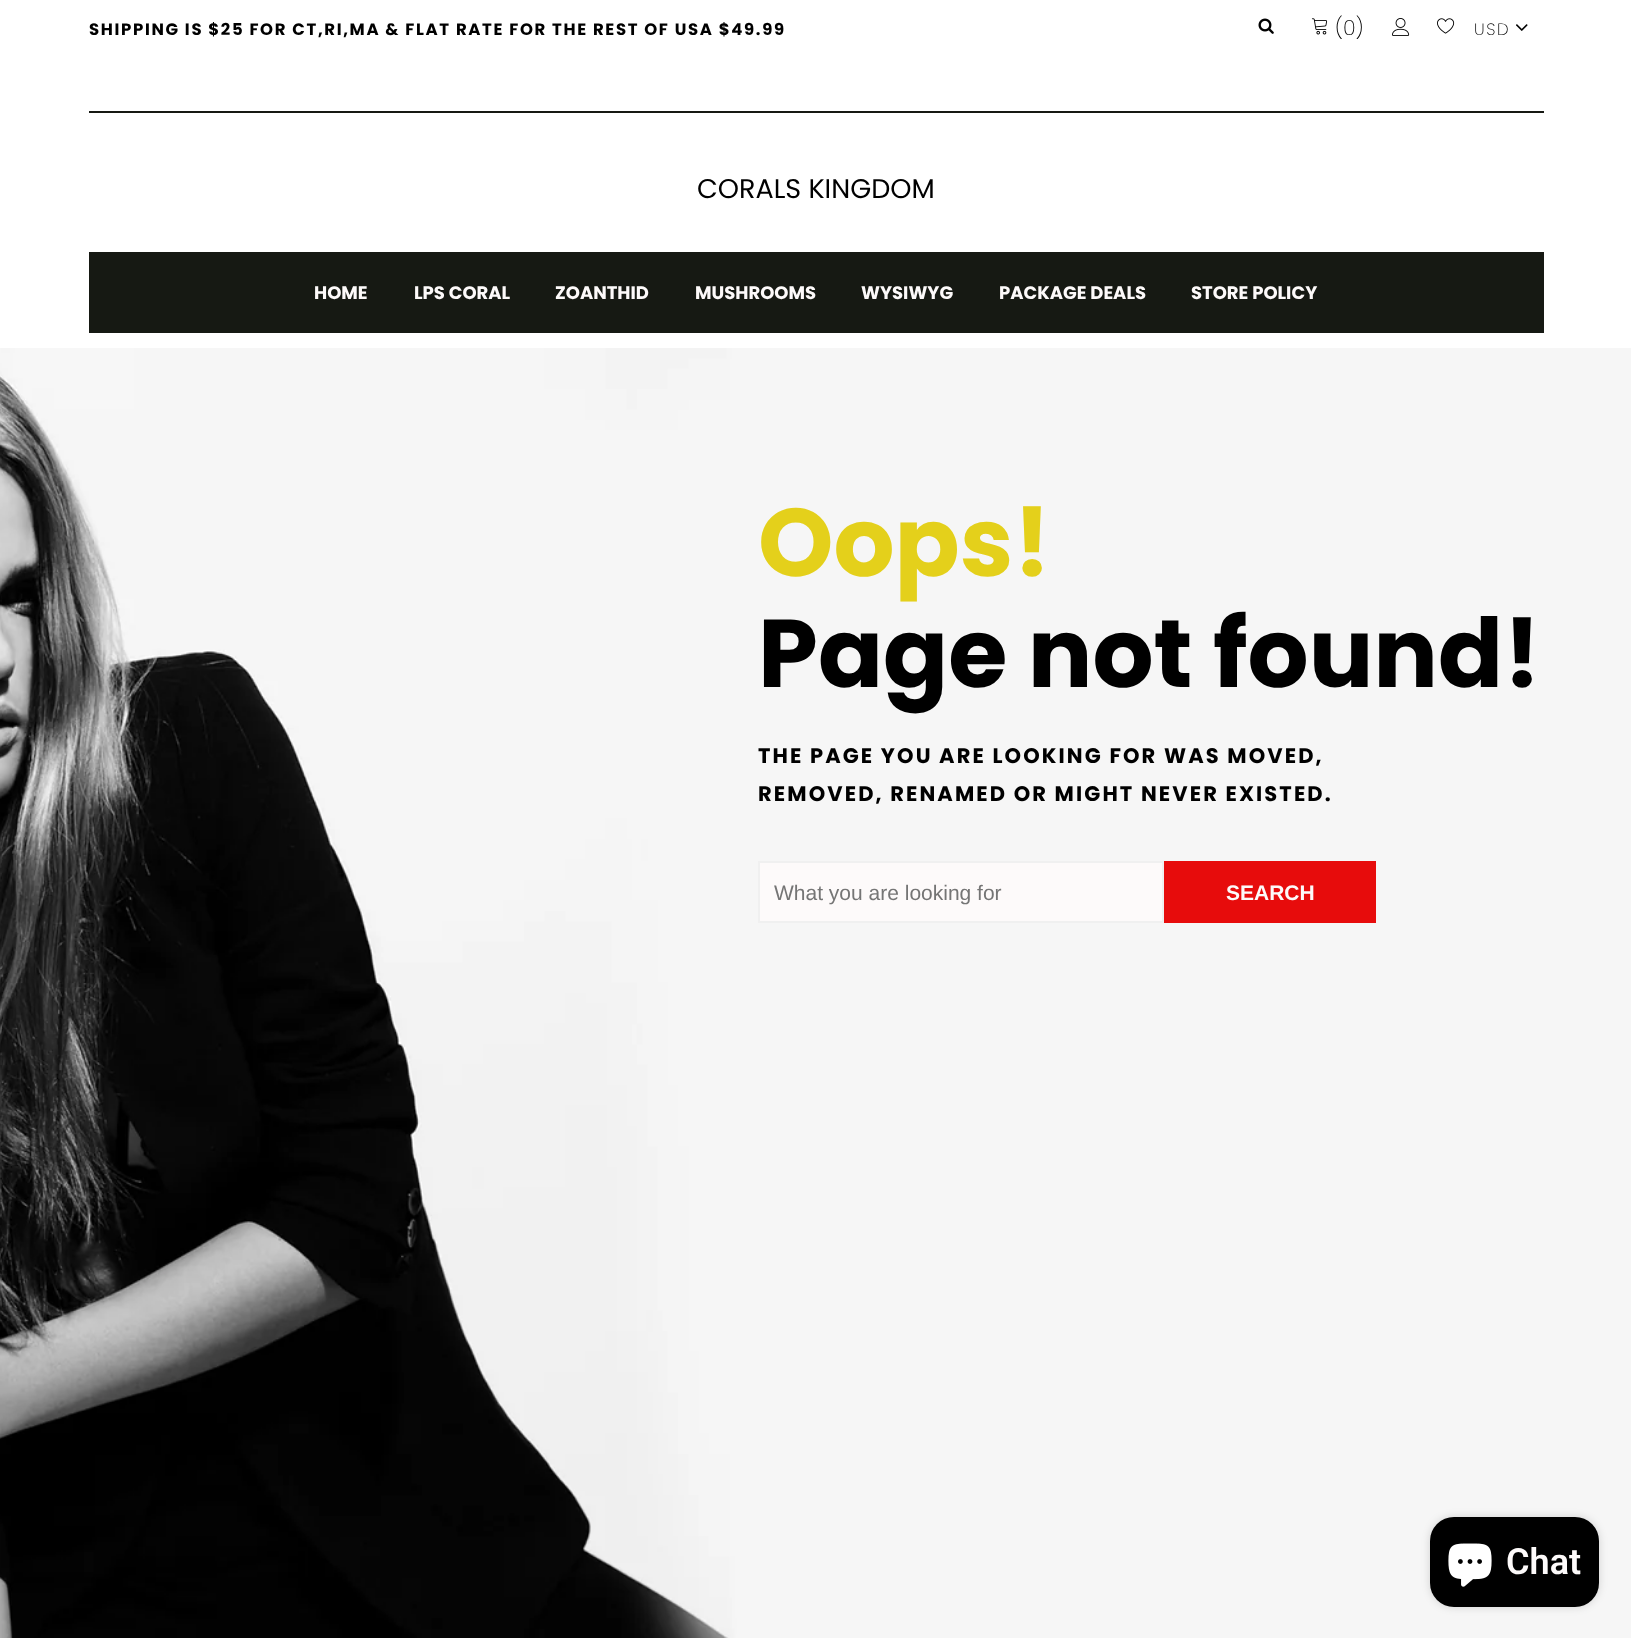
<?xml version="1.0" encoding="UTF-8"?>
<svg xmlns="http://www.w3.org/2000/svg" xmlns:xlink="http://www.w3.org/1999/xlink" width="1631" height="1638">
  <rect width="100%" height="100%" fill="#ffffff" />
  <rect x="89" y="111" width="1455" height="2" fill="#161913" />
  <image x="1258" y="18" width="16" height="16" xlink:href="image1.png" />
  <image x="1311" y="18" width="17" height="17" xlink:href="image2.png" />
  <image x="1392" y="18" width="18" height="18" xlink:href="image3.png" />
  <image x="1437" y="18" width="18" height="16" xlink:href="image4.png" />
  <image x="1516" y="24" width="12" height="7" xlink:href="image5.png" />
  <rect x="89" y="252" width="1455" height="81" fill="#161913" />
  <image x="0" y="348" width="1631" height="1290" xlink:href="image6.png" />
  <rect x="759" y="862" width="404" height="60" fill="#fdfafa" stroke="#f0f0f0" stroke-width="2" />
  <rect x="1164" y="861" width="212" height="62" fill="#e70c0c" />
  <rect x="1430" y="1517" width="169" height="90" rx="24" fill="#000000" fill-opacity="0.15" filter="blur(4px)" />
  <rect x="1430" y="1517" width="169" height="90" rx="24" fill="#000000" />
  <image x="1448" y="1543" width="44" height="44" xlink:href="image7.png" />
  <text x="89" y="35" style="font-family: Poppins; font-size: 16.5px; font-weight: bold; letter-spacing: 1.65px; fill: #000000">SHIPPING IS $25 FOR CT,RI,MA &amp; FLAT RATE FOR THE REST OF USA $49.99</text>
  <text x="1335" y="35" style="font-family: Poppins; font-size: 21px; font-weight: 200; fill: #000000">(0)</text>
  <text x="1474" y="35" style="font-family: Poppins; font-size: 16.5px; font-weight: 200; letter-spacing: 1.65px; fill: #000000">USD</text>
  <text x="697" y="198" style="font-family: Poppins; font-size: 27px; fill: #000000">CORALS KINGDOM</text>
  <text x="314" y="299" style="font-family: Poppins; font-size: 18px; font-weight: bold; fill: #fdfafa">HOME</text>
  <text x="414" y="299" style="font-family: Poppins; font-size: 18px; font-weight: bold; fill: #fdfafa">LPS CORAL</text>
  <text x="555" y="299" style="font-family: Poppins; font-size: 18px; font-weight: bold; fill: #fdfafa">ZOANTHID</text>
  <text x="695" y="299" style="font-family: Poppins; font-size: 18px; font-weight: bold; fill: #fdfafa">MUSHROOMS</text>
  <text x="861" y="299" style="font-family: Poppins; font-size: 18px; font-weight: bold; fill: #fdfafa">WYSIWYG</text>
  <text x="999" y="299" style="font-family: Poppins; font-size: 18px; font-weight: bold; fill: #fdfafa">PACKAGE DEALS</text>
  <text x="1191" y="299" style="font-family: Poppins; font-size: 18px; font-weight: bold; fill: #fdfafa">STORE POLICY</text>
  <text x="758" y="576" style="font-family: Poppins; font-size: 96px; font-weight: bold; fill: #e4d01b">Oops!</text>
  <text x="758" y="687" style="font-family: Poppins; font-size: 96px; font-weight: bold; fill: #000000">Page not found!</text>
  <text x="758" y="763" style="font-family: Poppins; font-size: 21px; font-weight: bold; letter-spacing: 2.1px; fill: #000000">THE PAGE YOU ARE LOOKING FOR WAS MOVED,</text>
  <text x="758" y="801" style="font-family: Poppins; font-size: 21px; font-weight: bold; letter-spacing: 2.1px; fill: #000000">REMOVED, RENAMED OR MIGHT NEVER EXISTED.</text>
  <text x="774" y="900" style="font-family: Liberation Sans; font-size: 21px; fill: #757575">What you are looking for</text>
  <text x="1226" y="900" style="font-family: Liberation Sans; font-size: 21px; font-weight: bold; fill: #fdfafa">SEARCH</text>
  <text x="1506" y="1574" style="font-family: Roboto; font-size: 36px; font-weight: 600; fill: #fdfafa">Chat</text>
</svg>
